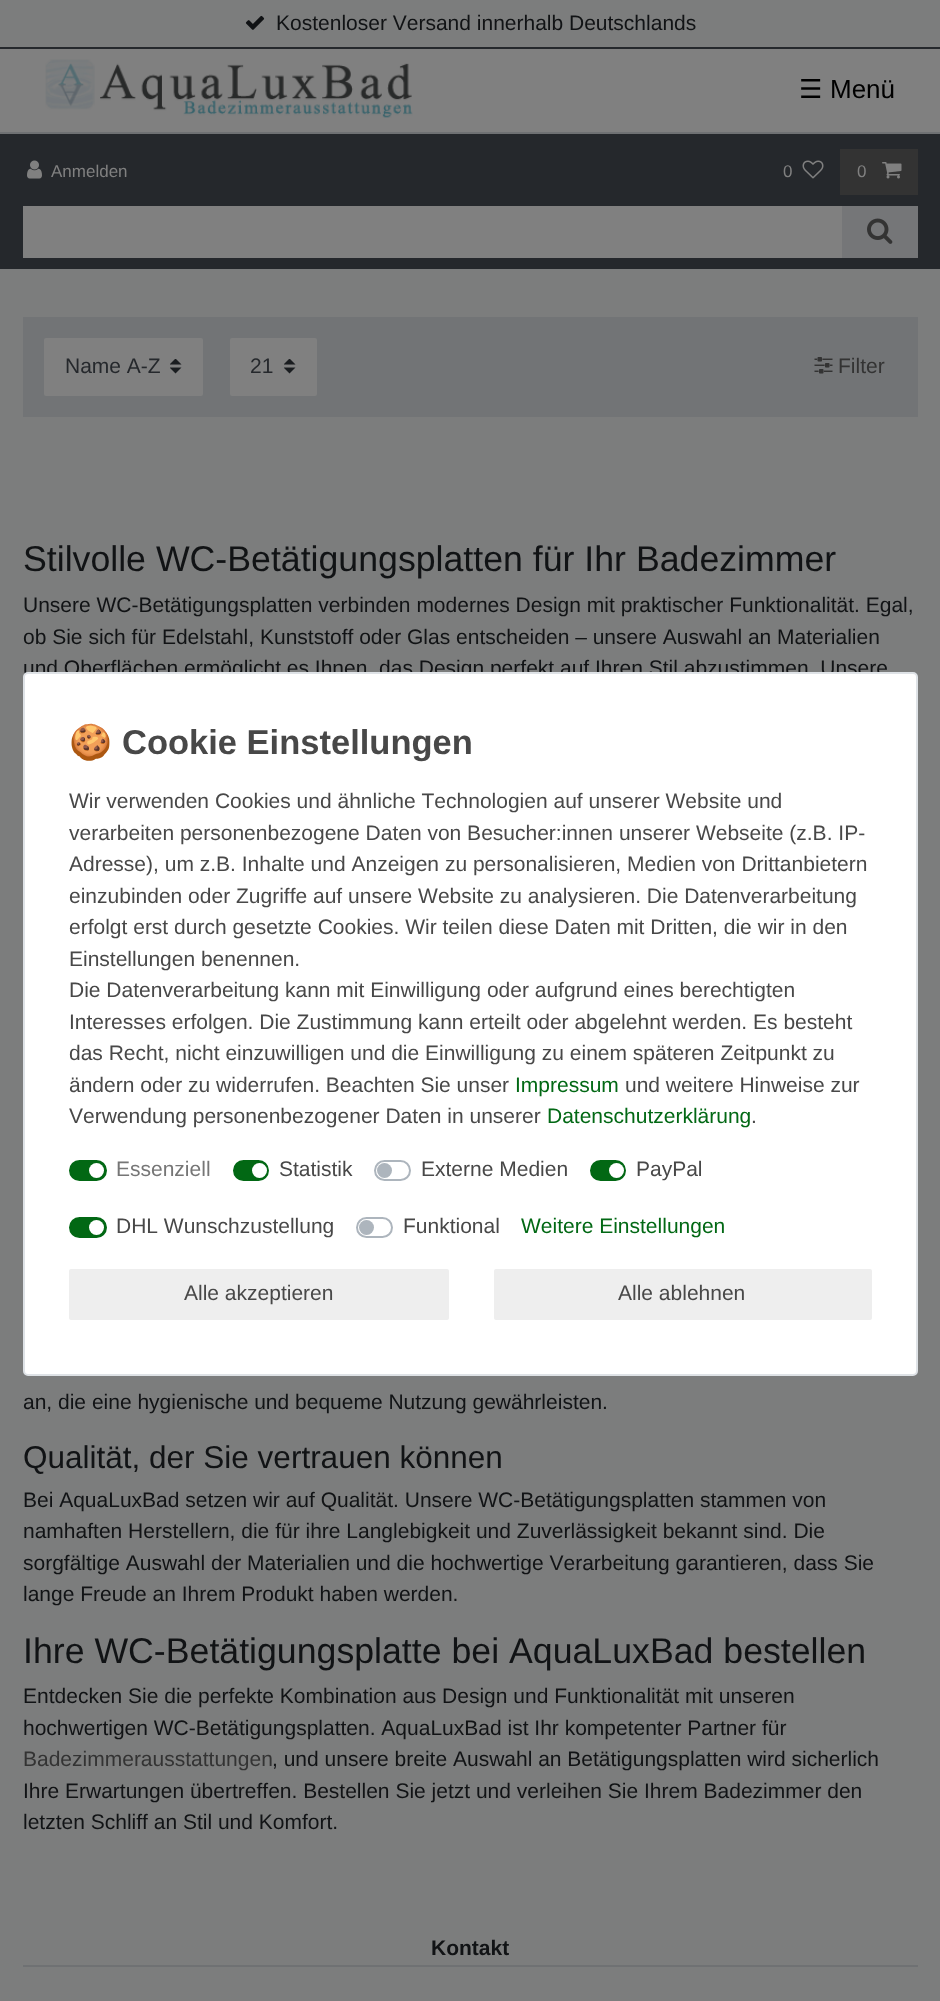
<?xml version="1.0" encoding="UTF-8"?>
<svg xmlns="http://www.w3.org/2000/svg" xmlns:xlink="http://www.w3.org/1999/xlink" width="940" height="2001">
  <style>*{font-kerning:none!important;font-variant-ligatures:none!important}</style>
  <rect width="100%" height="100%" fill="#7c7d7d" />
  <image x="245" y="15" width="20" height="15" xlink:href="image1.png" />
  <rect y="49" width="940" height="83" fill="#808080" />
  <rect y="47" width="940" height="2" fill="#25282c" />
  <rect y="132" width="940" height="2" fill="#6f7173" />
  <image x="45" y="59" width="368" height="59" xlink:href="image2.png" />
  <rect y="134" width="940" height="135" fill="#25282c" />
  <image x="27" y="160" width="15" height="19" xlink:href="image3.png" />
  <image x="802" y="160" width="22" height="19" xlink:href="image4.png" />
  <rect x="840" y="149" width="78" height="46" fill="#333333" />
  <image x="882" y="162" width="20" height="17" xlink:href="image5.png" />
  <rect x="23" y="206" width="819" height="52" fill="#808080" />
  <rect x="842" y="206" width="76" height="52" fill="#757678" />
  <image x="867" y="218" width="26" height="26" xlink:href="image6.png" />
  <rect x="23" y="317" width="895" height="100" fill="#727476" />
  <rect x="44" y="338" width="159" height="58" rx="2" fill="#808080" />
  <image x="170" y="359" width="12" height="15" xlink:href="image7.png" />
  <rect x="230" y="338" width="87" height="58" rx="2" fill="#808080" />
  <image x="284" y="359" width="12" height="15" xlink:href="image7.png" />
  <image x="814" y="357" width="19" height="17" xlink:href="image8.png" />
  <rect x="23" y="1965" width="895" height="2" fill="#6f7173" />
  <text x="276" y="30" style="font-family: Liberation Sans; font-size: 21px; fill: #111315">Kostenloser Versand innerhalb Deutschlands</text>
  <text x="799" y="98" style="font-family: DejaVu Sans; font-size: 26px; fill: #000000">☰</text>
  <text x="830" y="98" style="font-family: Liberation Sans; font-size: 26px; fill: #000000">Menü</text>
  <text x="51" y="177" style="font-family: Liberation Sans; font-size: 17px; fill: #808080">Anmelden</text>
  <text x="783" y="177" style="font-family: Liberation Sans; font-size: 17px; fill: #808080">0</text>
  <text x="857" y="177" style="font-family: Liberation Sans; font-size: 17px; fill: #808080">0</text>
  <text x="65" y="373" style="font-family: Liberation Sans; font-size: 21px; fill: #25282c">Name A-Z</text>
  <text x="250" y="373" style="font-family: Liberation Sans; font-size: 21px; fill: #25282c">21</text>
  <text x="838" y="373" style="font-family: Liberation Sans; font-size: 21px; fill: #333333">Filter</text>
  <text x="23" y="571" style="font-family: Liberation Sans; font-size: 35.7px; fill: #111315">Stilvolle WC-Betätigungsplatten für Ihr Badezimmer</text>
  <text x="23" y="612" style="font-family: Liberation Sans; font-size: 21px; fill: #111315">Unsere WC-Betätigungsplatten verbinden modernes Design mit praktischer Funktionalität. Egal,</text>
  <text x="23" y="644" style="font-family: Liberation Sans; font-size: 21px; fill: #111315">ob Sie sich für Edelstahl, Kunststoff oder Glas entscheiden – unsere Auswahl an Materialien</text>
  <text x="23" y="675" style="font-family: Liberation Sans; font-size: 21px; fill: #111315">und Oberflächen ermöglicht es Ihnen, das Design perfekt auf Ihren Stil abzustimmen. Unsere</text>
  <text x="23" y="1409" style="font-family: Liberation Sans; font-size: 21px; fill: #111315">an, die eine hygienische und bequeme Nutzung gewährleisten.</text>
  <text x="23" y="1468" style="font-family: Liberation Sans; font-size: 31.5px; fill: #111315">Qualität, der Sie vertrauen können</text>
  <text x="23" y="1507" style="font-family: Liberation Sans; font-size: 21px; fill: #111315">Bei AquaLuxBad setzen wir auf Qualität. Unsere WC-Betätigungsplatten stammen von</text>
  <text x="23" y="1538" style="font-family: Liberation Sans; font-size: 21px; fill: #111315">namhaften Herstellern, die für ihre Langlebigkeit und Zuverlässigkeit bekannt sind. Die</text>
  <text x="23" y="1570" style="font-family: Liberation Sans; font-size: 21px; fill: #111315">sorgfältige Auswahl der Materialien und die hochwertige Verarbeitung garantieren, dass Sie</text>
  <text x="23" y="1601" style="font-family: Liberation Sans; font-size: 21px; fill: #111315">lange Freude an Ihrem Produkt haben werden.</text>
  <text x="23" y="1663" style="font-family: Liberation Sans; font-size: 35.7px; fill: #111315">Ihre WC-Betätigungsplatte bei AquaLuxBad bestellen</text>
  <text x="23" y="1703" style="font-family: Liberation Sans; font-size: 21px; fill: #111315">Entdecken Sie die perfekte Kombination aus Design und Funktionalität mit unseren</text>
  <text x="23" y="1735" style="font-family: Liberation Sans; font-size: 21px; fill: #111315">hochwertigen WC-Betätigungsplatten. AquaLuxBad ist Ihr kompetenter Partner für</text>
  <text x="23" y="1766" style="font-family: Liberation Sans; font-size: 21px; fill: #333333">Badezimmerausstattungen</text>
  <text x="272" y="1766" style="font-family: Liberation Sans; font-size: 21px; fill: #111315">, und unsere breite Auswahl an Betätigungsplatten wird sicherlich</text>
  <text x="23" y="1798" style="font-family: Liberation Sans; font-size: 21px; fill: #111315">Ihre Erwartungen übertreffen. Bestellen Sie jetzt und verleihen Sie Ihrem Badezimmer den</text>
  <text x="23" y="1829" style="font-family: Liberation Sans; font-size: 21px; fill: #111315">letzten Schliff an Stil und Komfort.</text>
  <rect x="24" y="673" width="893" height="702" rx="4" fill="#ffffff" stroke="#dee2e6" stroke-width="2" />
  <text x="69" y="754" style="font-family: Noto Color Emoji; font-size: 34.5px; font-weight: bold; fill: #484848">🍪</text>
  <text x="122" y="754" style="font-family: Liberation Sans; font-size: 34.5px; font-weight: bold; fill: #484848">Cookie Einstellungen</text>
  <text x="69" y="808" style="font-family: Liberation Sans; font-size: 21px; fill: #484848">Wir verwenden Cookies und ähnliche Technologien auf unserer Website und</text>
  <text x="69" y="840" style="font-family: Liberation Sans; font-size: 21px; fill: #484848">verarbeiten personenbezogene Daten von Besucher:innen unserer Webseite (z.B. IP-</text>
  <text x="69" y="871" style="font-family: Liberation Sans; font-size: 21px; fill: #484848">Adresse), um z.B. Inhalte und Anzeigen zu personalisieren, Medien von Drittanbietern</text>
  <text x="69" y="903" style="font-family: Liberation Sans; font-size: 21px; fill: #484848">einzubinden oder Zugriffe auf unsere Website zu analysieren. Die Datenverarbeitung</text>
  <text x="69" y="934" style="font-family: Liberation Sans; font-size: 21px; fill: #484848">erfolgt erst durch gesetzte Cookies. Wir teilen diese Daten mit Dritten, die wir in den</text>
  <text x="69" y="966" style="font-family: Liberation Sans; font-size: 21px; fill: #484848">Einstellungen benennen.</text>
  <text x="69" y="997" style="font-family: Liberation Sans; font-size: 21px; fill: #484848">Die Datenverarbeitung kann mit Einwilligung oder aufgrund eines berechtigten</text>
  <text x="69" y="1029" style="font-family: Liberation Sans; font-size: 21px; fill: #484848">Interesses erfolgen. Die Zustimmung kann erteilt oder abgelehnt werden. Es besteht</text>
  <text x="69" y="1060" style="font-family: Liberation Sans; font-size: 21px; fill: #484848">das Recht, nicht einzuwilligen und die Einwilligung zu einem späteren Zeitpunkt zu</text>
  <text x="69" y="1092" style="font-family: Liberation Sans; font-size: 21px; fill: #484848">ändern oder zu widerrufen. Beachten Sie unser</text>
  <text x="515" y="1092" style="font-family: Liberation Sans; font-size: 21px; fill: #026814">Impressum</text>
  <text x="625" y="1092" style="font-family: Liberation Sans; font-size: 21px; fill: #484848">und weitere Hinweise zur</text>
  <text x="69" y="1123" style="font-family: Liberation Sans; font-size: 21px; fill: #484848">Verwendung personenbezogener Daten in unserer</text>
  <text x="547" y="1123" style="font-family: Liberation Sans; font-size: 21px; fill: #026814">Datenschutzerklärung</text>
  <text x="751" y="1123" style="font-family: Liberation Sans; font-size: 21px; fill: #484848">.</text>
  <rect x="70" y="1161" width="36" height="19" rx="9.5" fill="#026814" stroke="#026814" stroke-width="2" />
  <text x="116" y="1176" style="font-family: Liberation Sans; font-size: 21px; fill: #767676">Essenziell</text>
  <circle cx="96.5" cy="1170.5" r="7.5" fill="#ffffff" />
  <rect x="234" y="1161" width="34" height="19" rx="9.5" fill="#026814" stroke="#026814" stroke-width="2" />
  <text x="279" y="1176" style="font-family: Liberation Sans; font-size: 21px; fill: #484848">Statistik</text>
  <circle cx="259.5" cy="1170.5" r="7.5" fill="#ffffff" />
  <rect x="375" y="1161" width="35" height="19" rx="9.5" fill="none" stroke="#adb5bd" stroke-width="2" />
  <text x="421" y="1176" style="font-family: Liberation Sans; font-size: 21px; fill: #484848">Externe Medien</text>
  <circle cx="384.5" cy="1170.5" r="7.5" fill="#adb5bd" />
  <rect x="591" y="1161" width="34" height="19" rx="9.5" fill="#026814" stroke="#026814" stroke-width="2" />
  <text x="636" y="1176" style="font-family: Liberation Sans; font-size: 21px; fill: #484848">PayPal</text>
  <circle cx="616.5" cy="1170.5" r="7.5" fill="#ffffff" />
  <rect x="70" y="1218" width="36" height="19" rx="9.5" fill="#026814" stroke="#026814" stroke-width="2" />
  <text x="116" y="1233" style="font-family: Liberation Sans; font-size: 21px; fill: #484848">DHL Wunschzustellung</text>
  <circle cx="96.5" cy="1227.5" r="7.5" fill="#ffffff" />
  <rect x="357" y="1218" width="35" height="19" rx="9.5" fill="none" stroke="#adb5bd" stroke-width="2" />
  <text x="403" y="1233" style="font-family: Liberation Sans; font-size: 21px; fill: #484848">Funktional</text>
  <circle cx="366.5" cy="1227.5" r="7.5" fill="#adb5bd" />
  <text x="521" y="1233" style="font-family: Liberation Sans; font-size: 21px; fill: #026814">Weitere Einstellungen</text>
  <rect x="70" y="1270" width="378" height="49" rx="1" fill="#eeeeee" stroke="#eeeeee" stroke-width="2" />
  <text x="184" y="1300" style="font-family: Liberation Sans; font-size: 21px; fill: #484848">Alle akzeptieren</text>
  <rect x="495" y="1270" width="376" height="49" rx="1" fill="#eeeeee" stroke="#eeeeee" stroke-width="2" />
  <text x="618" y="1300" style="font-family: Liberation Sans; font-size: 21px; fill: #484848">Alle ablehnen</text>
  <text x="431" y="1955" style="font-family: Liberation Sans; font-size: 21px; font-weight: bold; fill: #111315">Kontakt</text>
</svg>
